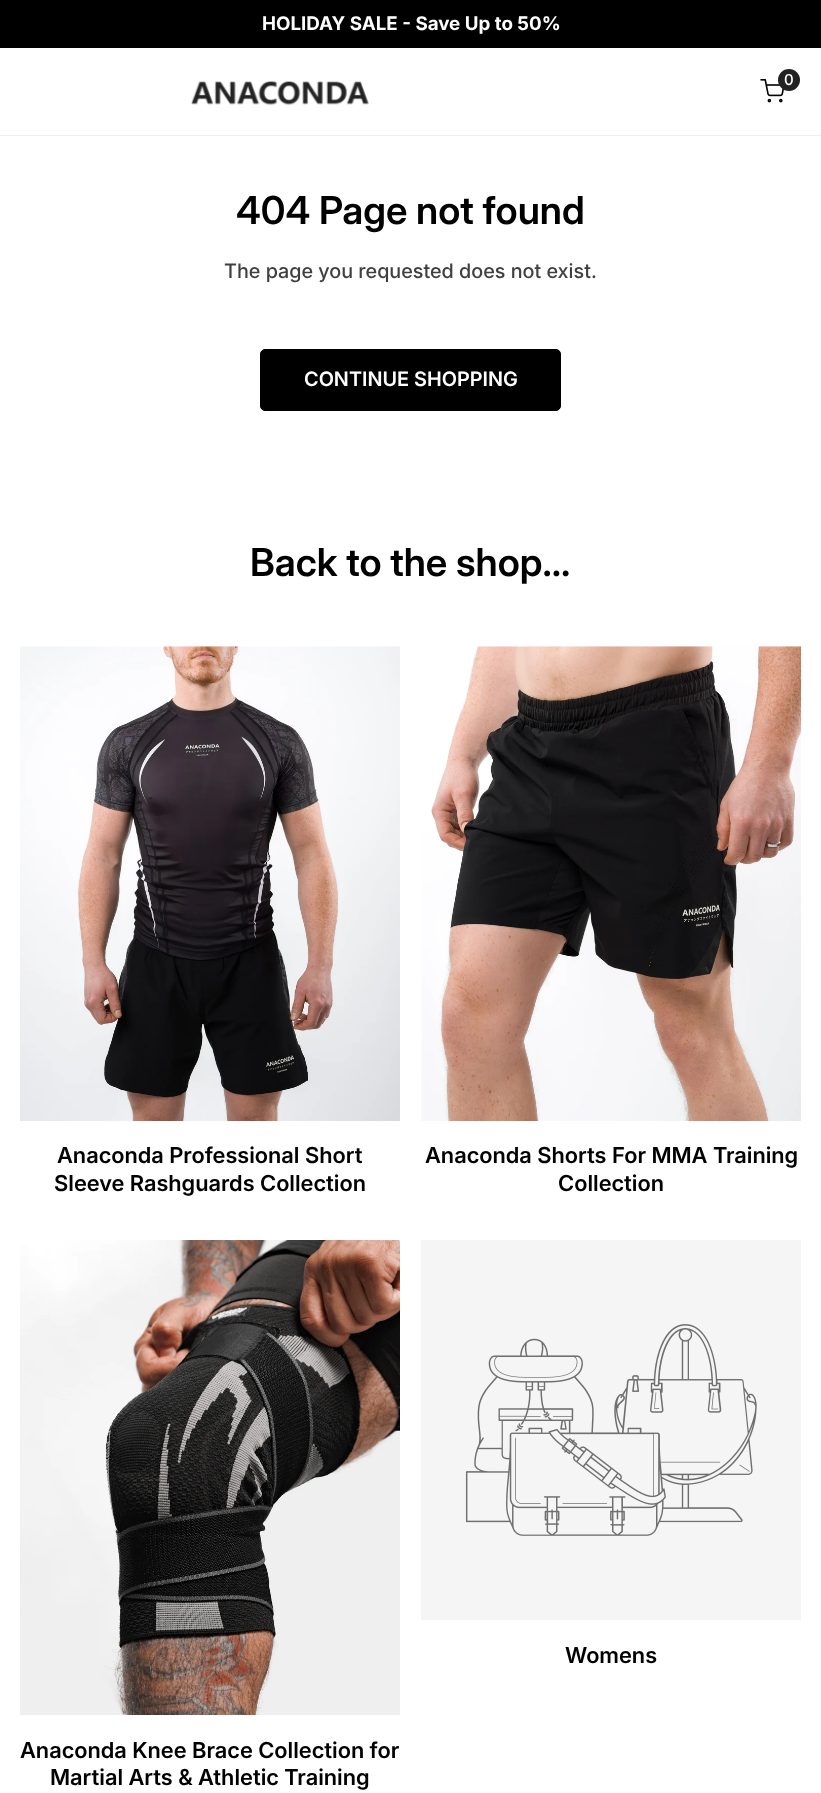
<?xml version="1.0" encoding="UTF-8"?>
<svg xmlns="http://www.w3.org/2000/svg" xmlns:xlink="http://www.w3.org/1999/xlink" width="821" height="1793">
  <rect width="100%" height="100%" fill="#ffffff" />
  <rect width="821" height="48" fill="#000000" />
  <rect y="135" width="821" height="1" fill="#eeeeee" />
  <image x="760" y="79" width="24" height="24" xlink:href="image1.png" />
  <circle cx="789" cy="80" r="11" fill="#222222" />
  <image x="191" y="81" width="178" height="25" xlink:href="image2.png" />
  <rect x="260.5" y="349.5" width="300" height="61" rx="4.5" fill="#000000" stroke="#000000" />
  <image x="20" y="646" width="380" height="476" xlink:href="image3.png" />
  <image x="421" y="646" width="381" height="476" xlink:href="image4.png" />
  <rect x="421" y="1240" width="380" height="380" fill="#f5f5f5" />
  <image x="465" y="1324" width="292" height="212" xlink:href="image5.png" />
  <image x="20" y="1240" width="380" height="475" xlink:href="image6.png" />
  <text x="262" y="30" style="font-family: Inter; font-size: 18.75px; font-weight: bold; fill: #ffffff">HOLIDAY SALE - Save Up to 50%</text>
  <text x="784" y="85" style="font-family: 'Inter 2'; font-size: 15px; font-weight: 500; fill: #ffffff">0</text>
  <text x="236" y="224" style="font-family: Inter; font-size: 38.5px; font-weight: 600; fill: #000000">404 Page not found</text>
  <text x="224" y="278" style="font-family: Inter; font-size: 19.9px; font-weight: 500; fill: #404040">The page you requested does not exist.</text>
  <text x="304" y="386" style="font-family: 'Inter 2'; font-size: 19.9px; font-weight: 600; fill: #ffffff">CONTINUE SHOPPING</text>
  <text x="250" y="576" style="font-family: Inter; font-size: 38.5px; font-weight: 600; fill: #000000">Back to the shop...</text>
  <text x="57" y="1163" style="font-family: 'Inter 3'; font-size: 22px; font-weight: 600; fill: #000000">Anaconda Professional Short</text>
  <text x="54" y="1191" style="font-family: 'Inter 3'; font-size: 22px; font-weight: 600; fill: #000000">Sleeve Rashguards Collection</text>
  <text x="425" y="1163" style="font-family: 'Inter 3'; font-size: 22px; font-weight: 600; fill: #000000">Anaconda Shorts For MMA Training</text>
  <text x="558" y="1191" style="font-family: 'Inter 3'; font-size: 22px; font-weight: 600; fill: #000000">Collection</text>
  <text x="565" y="1663" style="font-family: 'Inter 3'; font-size: 22px; font-weight: 600; fill: #000000">Womens</text>
  <text x="20" y="1758" style="font-family: 'Inter 3'; font-size: 22px; font-weight: 600; fill: #000000">Anaconda Knee Brace Collection for</text>
  <text x="50" y="1785" style="font-family: 'Inter 3'; font-size: 22px; font-weight: 600; fill: #000000">Martial Arts &amp; Athletic Training</text>
</svg>
